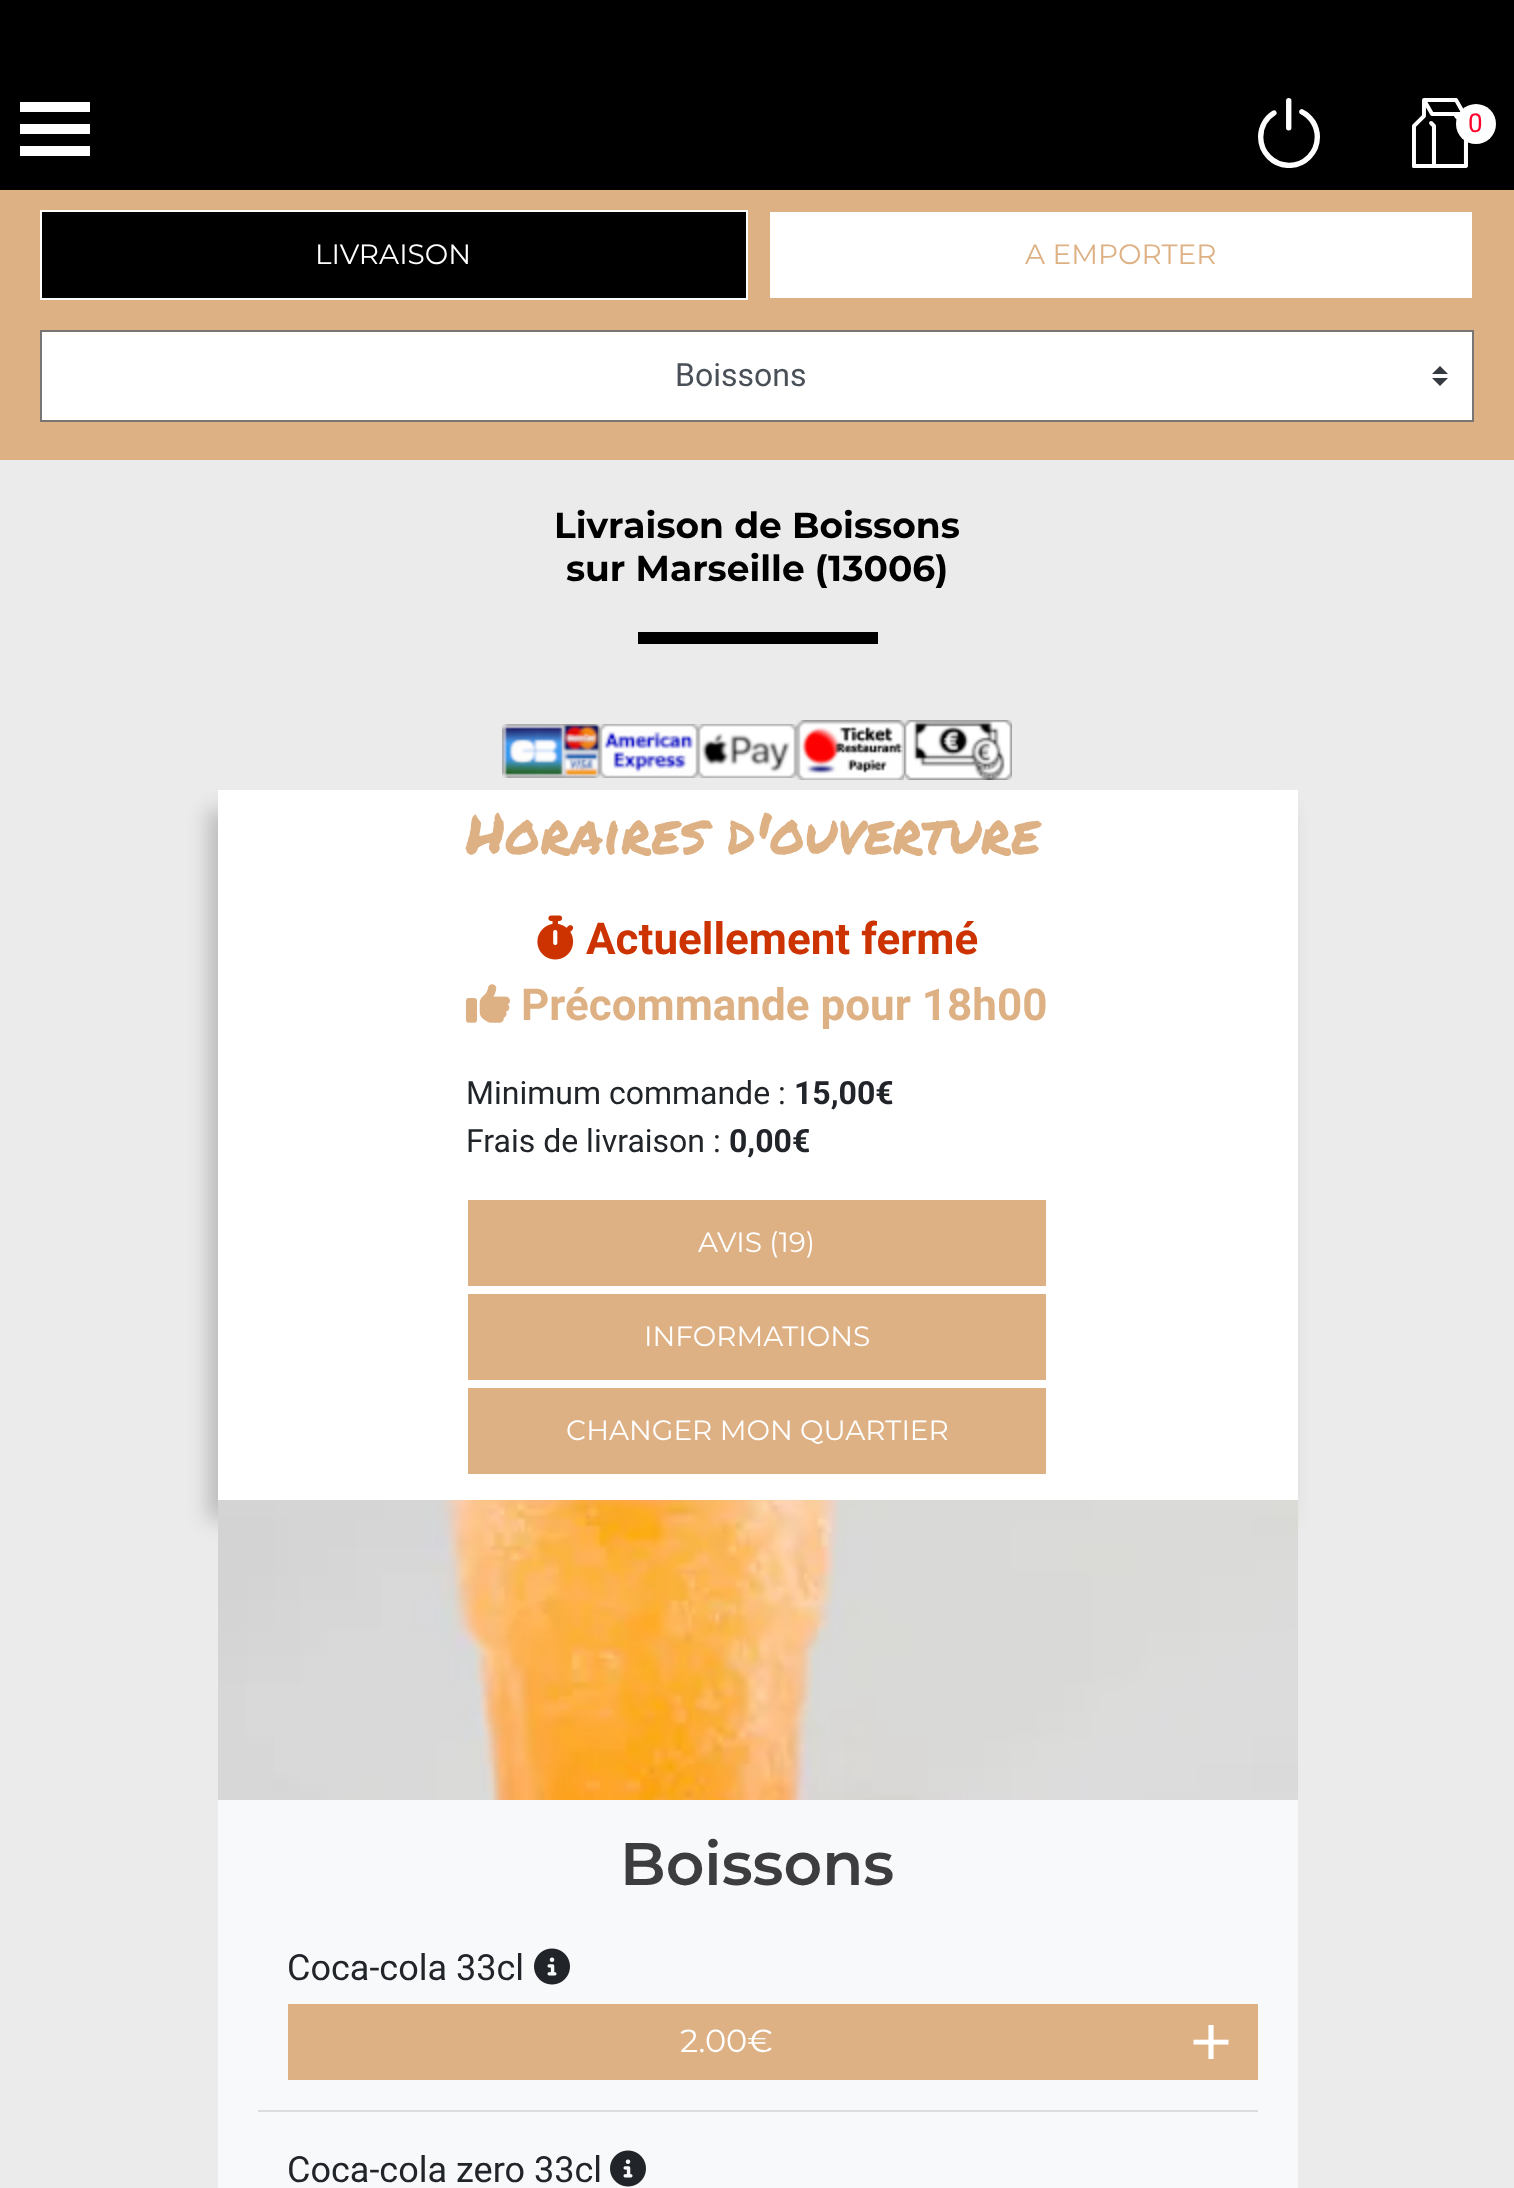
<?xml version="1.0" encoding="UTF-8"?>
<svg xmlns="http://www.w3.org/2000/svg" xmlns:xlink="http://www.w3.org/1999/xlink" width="1514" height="2188">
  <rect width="100%" height="100%" fill="#ebebeb" />
  <rect width="1514" height="70" fill="#000000" />
  <rect y="70" width="1514" height="120" fill="#000101" fill-opacity="0.27" filter="blur(10px)" />
  <rect y="70" width="1514" height="120" fill="#000000" />
  <rect x="20" y="102" width="70" height="10" fill="#ffffff" />
  <rect x="20" y="124" width="70" height="10" fill="#ffffff" />
  <rect x="20" y="146" width="70" height="10" fill="#ffffff" />
  <image x="1258" y="98" width="62" height="70" xlink:href="image1.png" />
  <image x="1412" y="98" width="56" height="70" xlink:href="image2.png" />
  <circle cx="1476" cy="124" r="20" fill="#ffffff" />
  <rect y="190" width="1514" height="270" fill="#deb185" />
  <rect x="41" y="211" width="706" height="88" fill="#000000" stroke="#ffffff" stroke-width="2" />
  <rect x="770" y="212" width="702" height="86" fill="#ffffff" />
  <rect x="42" y="332" width="1430" height="88" fill="#ffffff" />
  <path d="M 1440 366 l -8 8 h 16 z m 0 20 l -8 -8 h 16 z" fill="#343a40" />
  <rect x="41" y="331" width="1432" height="90" fill="none" stroke="#767676" stroke-width="2" />
  <rect x="638" y="632" width="240" height="12" fill="#000000" />
  <image x="502" y="724" width="98" height="54" xlink:href="image3.png" />
  <image x="600" y="724" width="98" height="54" xlink:href="image4.png" />
  <image x="698" y="724" width="98" height="54" xlink:href="image5.png" />
  <rect x="208" y="810" width="1080" height="710" fill="#bcbbbb" filter="blur(10px)" />
  <image x="796" y="720" width="108" height="60" xlink:href="image6.png" />
  <image x="904" y="720" width="108" height="60" xlink:href="image7.png" />
  <rect x="218" y="790" width="1080" height="710" fill="#ffffff" />
  <image x="537" y="915" width="37" height="45" xlink:href="image8.png" />
  <image x="466" y="984" width="44" height="39" xlink:href="image9.png" />
  <rect x="468" y="1200" width="578" height="86" fill="#deb185" />
  <rect x="468" y="1294" width="578" height="86" fill="#deb185" />
  <rect x="468" y="1388" width="578" height="86" fill="#deb185" />
  <rect x="218" y="1800" width="1080" height="388" fill="#f8f9fa" />
  <image x="218" y="1500" width="1080" height="300" xlink:href="image10.png" />
  <rect x="258" y="2110" width="1000" height="2" fill="#dddddd" />
  <image x="534" y="1948" width="36" height="37" xlink:href="image11.png" />
  <rect x="288" y="2004" width="970" height="76" fill="#deb185" />
  <image x="610" y="2150" width="36" height="37" xlink:href="image11.png" />
  <text x="1468" y="132" style="font-family: Roboto; font-size: 26px; fill: #ff002a">0</text>
  <text x="315" y="264" style="font-family: Montserrat; font-size: 28px; fill: #ffffff">LIVRAISON</text>
  <text x="1025" y="264" style="font-family: Montserrat; font-size: 28px; fill: #deb185">A EMPORTER</text>
  <text x="675" y="386" style="font-family: Roboto; font-size: 32px; fill: #495057">Boissons</text>
  <text x="554" y="538" style="font-family: Montserrat; font-size: 36px; font-weight: bold; fill: #000000">Livraison de Boissons</text>
  <text x="566" y="581" style="font-family: Montserrat; font-size: 36px; font-weight: bold; fill: #000000">sur Marseille (13006)</text>
  <text x="466" y="854" style="font-family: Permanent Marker; font-size: 56px; fill: #deb185">Horaires d'ouverture</text>
  <text x="586" y="954" style="font-family: Roboto; font-size: 44px; font-weight: bold; fill: #cc3300">Actuellement fermé</text>
  <text x="521" y="1020" style="font-family: Roboto; font-size: 44px; font-weight: bold; fill: #deb185">Précommande pour 18h00</text>
  <text x="466" y="1104" style="font-family: Roboto; font-size: 32px; fill: #212529">Minimum commande :</text>
  <text x="794" y="1104" style="font-family: Roboto; font-size: 32px; font-weight: bold; fill: #212529">15,00€</text>
  <text x="466" y="1152" style="font-family: Roboto; font-size: 32px; fill: #212529">Frais de livraison :</text>
  <text x="729" y="1152" style="font-family: Roboto; font-size: 32px; font-weight: bold; fill: #212529">0,00€</text>
  <text x="698" y="1252" style="font-family: Montserrat; font-size: 28px; fill: #ffffff">AVIS (19)</text>
  <text x="644" y="1346" style="font-family: Montserrat; font-size: 28px; fill: #ffffff">INFORMATIONS</text>
  <text x="566" y="1440" style="font-family: Montserrat; font-size: 28px; fill: #ffffff">CHANGER MON QUARTIER</text>
  <text x="620" y="1885" style="font-family: Montserrat; font-size: 60px; font-weight: 600; fill: #3d3c3f">Boissons</text>
  <text x="287" y="1980" style="font-family: Roboto; font-size: 36px; fill: #212529">Coca-cola 33cl</text>
  <text x="680" y="2052" style="font-family: Montserrat; font-size: 32px; fill: #ffffff">2.00€</text>
  <text x="1188" y="2070" style="font-family: Montserrat; font-size: 80px; fill: #ffffff">+</text>
  <text x="287" y="2182" style="font-family: Roboto; font-size: 36px; fill: #212529">Coca-cola zero 33cl</text>
</svg>
